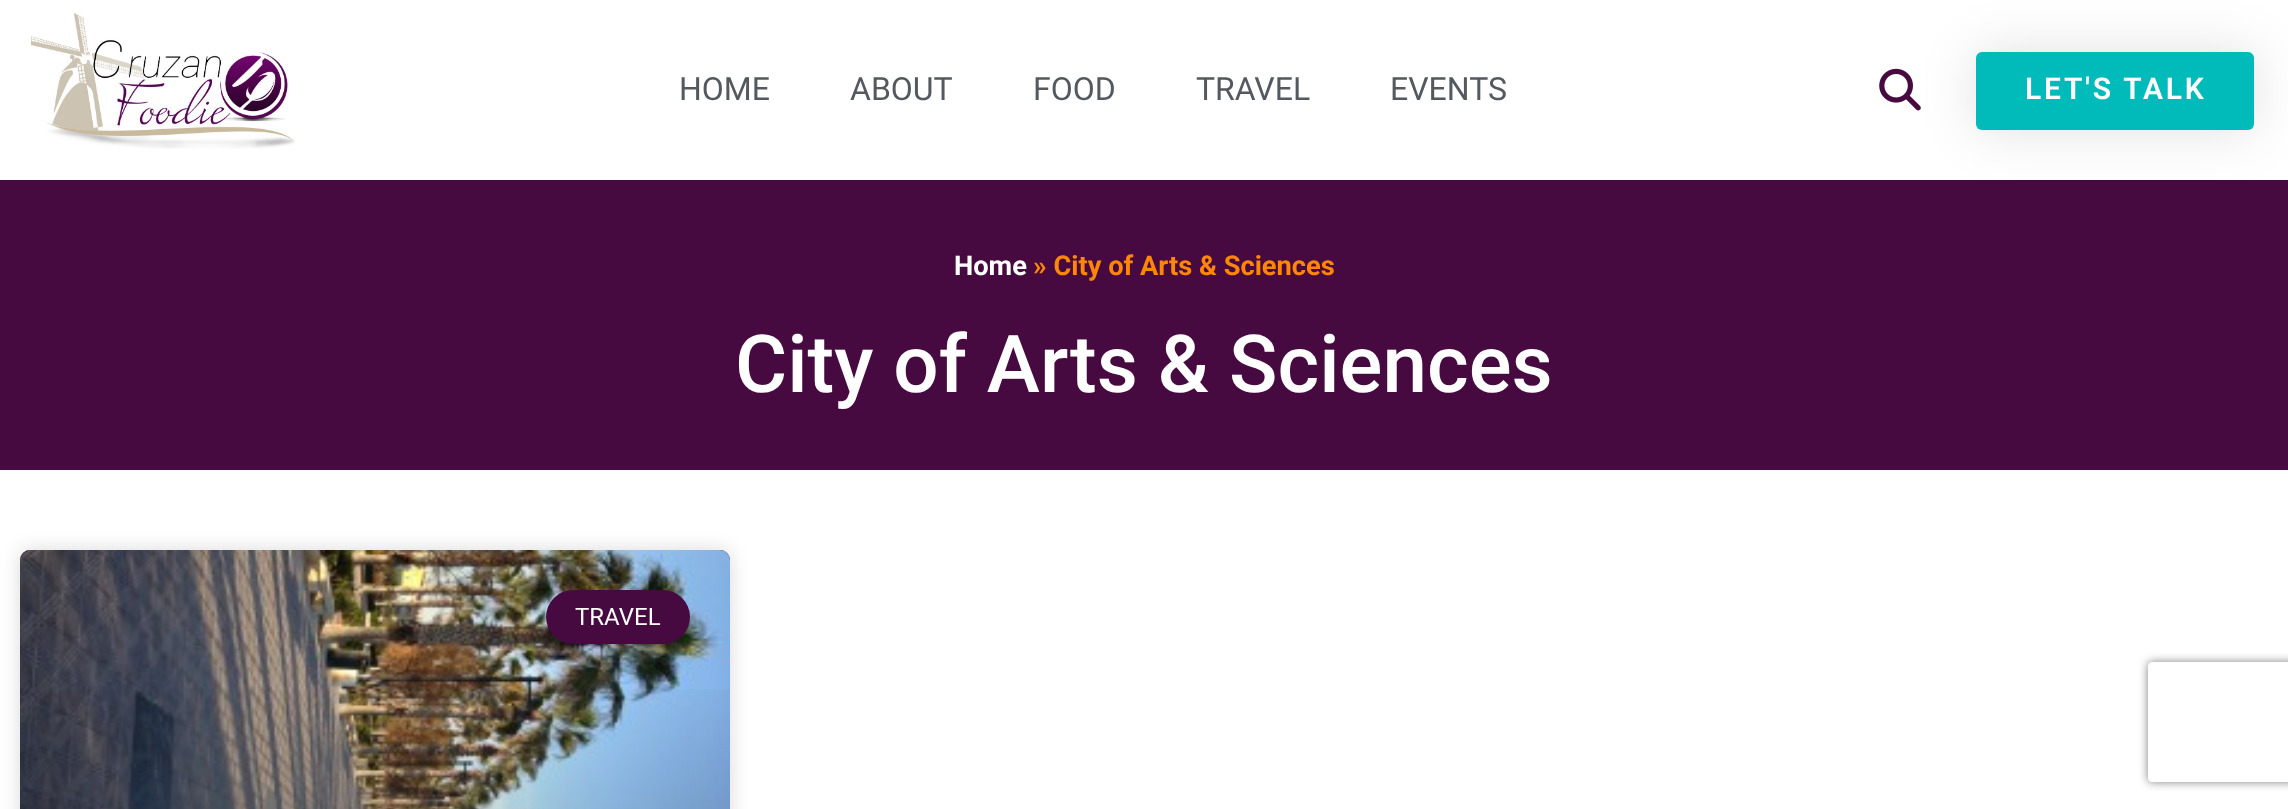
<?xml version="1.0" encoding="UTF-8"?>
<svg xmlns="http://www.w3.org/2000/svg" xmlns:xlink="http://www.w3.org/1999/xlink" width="2288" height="809">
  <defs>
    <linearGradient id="g1" gradientUnits="userSpaceOnUse" x1="375" y1="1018" x2="375" y2="550"><stop offset="0" stop-color="#000000" stop-opacity="0.35" /><stop offset="0.75" stop-color="#000000" stop-opacity="0" /></linearGradient>
    <clipPath id="clip1"><path d="M 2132 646 h 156 v 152 h -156 z m 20 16 h 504 c 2 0 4 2 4 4 v 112 c 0 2 -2 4 -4 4 h -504 c -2 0 -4 -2 -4 -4 v -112 c 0 -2 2 -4 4 -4 z" clip-rule="evenodd" /></clipPath>
  </defs>
  <rect width="100%" height="100%" fill="#ffffff" />
  <image x="31" y="12" width="264" height="137" xlink:href="image1.png" />
  <image x="1879" y="68" width="42" height="43" xlink:href="image2.png" />
  <rect y="180" width="2288" height="290" fill="#460a40" />
  <rect x="1976" y="52" width="278" height="78" rx="6" fill="#000000" fill-opacity="0.12" filter="blur(27px)" />
  <rect x="1976" y="52" width="278" height="78" rx="6" fill="#01bbbb" />
  <rect x="20" y="550" width="710" height="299" rx="10" fill="#000000" fill-opacity="0.15" filter="blur(10px)" />
  <rect x="20" y="550" width="710" height="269" rx="10" fill="#460a40" />
  <image x="20" y="550" width="710" height="259" xlink:href="image3.png" />
  <rect x="20" y="689" width="710" height="120" fill="url(#g1)" />
  <rect x="546" y="590" width="144" height="54" rx="27" fill="#460a40" />
  <g clip-path="url(#clip1)">
    <rect x="2148" y="662" width="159" height="120" rx="4" fill="#808080" filter="blur(5px)" />
  </g>
  <text x="679" y="100" style="font-family: Roboto; font-size: 32px; fill: #54595f">HOME</text>
  <text x="850" y="100" style="font-family: Roboto; font-size: 32px; fill: #54595f">ABOUT</text>
  <text x="1033" y="100" style="font-family: Roboto; font-size: 32px; fill: #54595f">FOOD</text>
  <text x="1196" y="100" style="font-family: Roboto; font-size: 32px; fill: #54595f">TRAVEL</text>
  <text x="1390" y="100" style="font-family: Roboto; font-size: 32px; fill: #54595f">EVENTS</text>
  <text x="2025" y="99" style="font-family: Roboto; font-size: 30px; font-weight: 600; letter-spacing: 2.75px; fill: #ffffff">LET'S TALK</text>
  <text x="954" y="275" style="font-family: Roboto; font-size: 27.25px; font-weight: bold; fill: #ffffff">Home</text>
  <text x="1033" y="275" style="font-family: Roboto; font-size: 27.25px; font-weight: bold; fill: #ff8606">» City of Arts &amp; Sciences</text>
  <text x="735" y="392" style="font-family: Roboto; font-size: 80px; font-weight: 500; fill: #ffffff">City of Arts &amp; Sciences</text>
  <text x="575" y="625" style="font-family: Roboto; font-size: 24px; fill: #ffffff">TRAVEL</text>
</svg>
